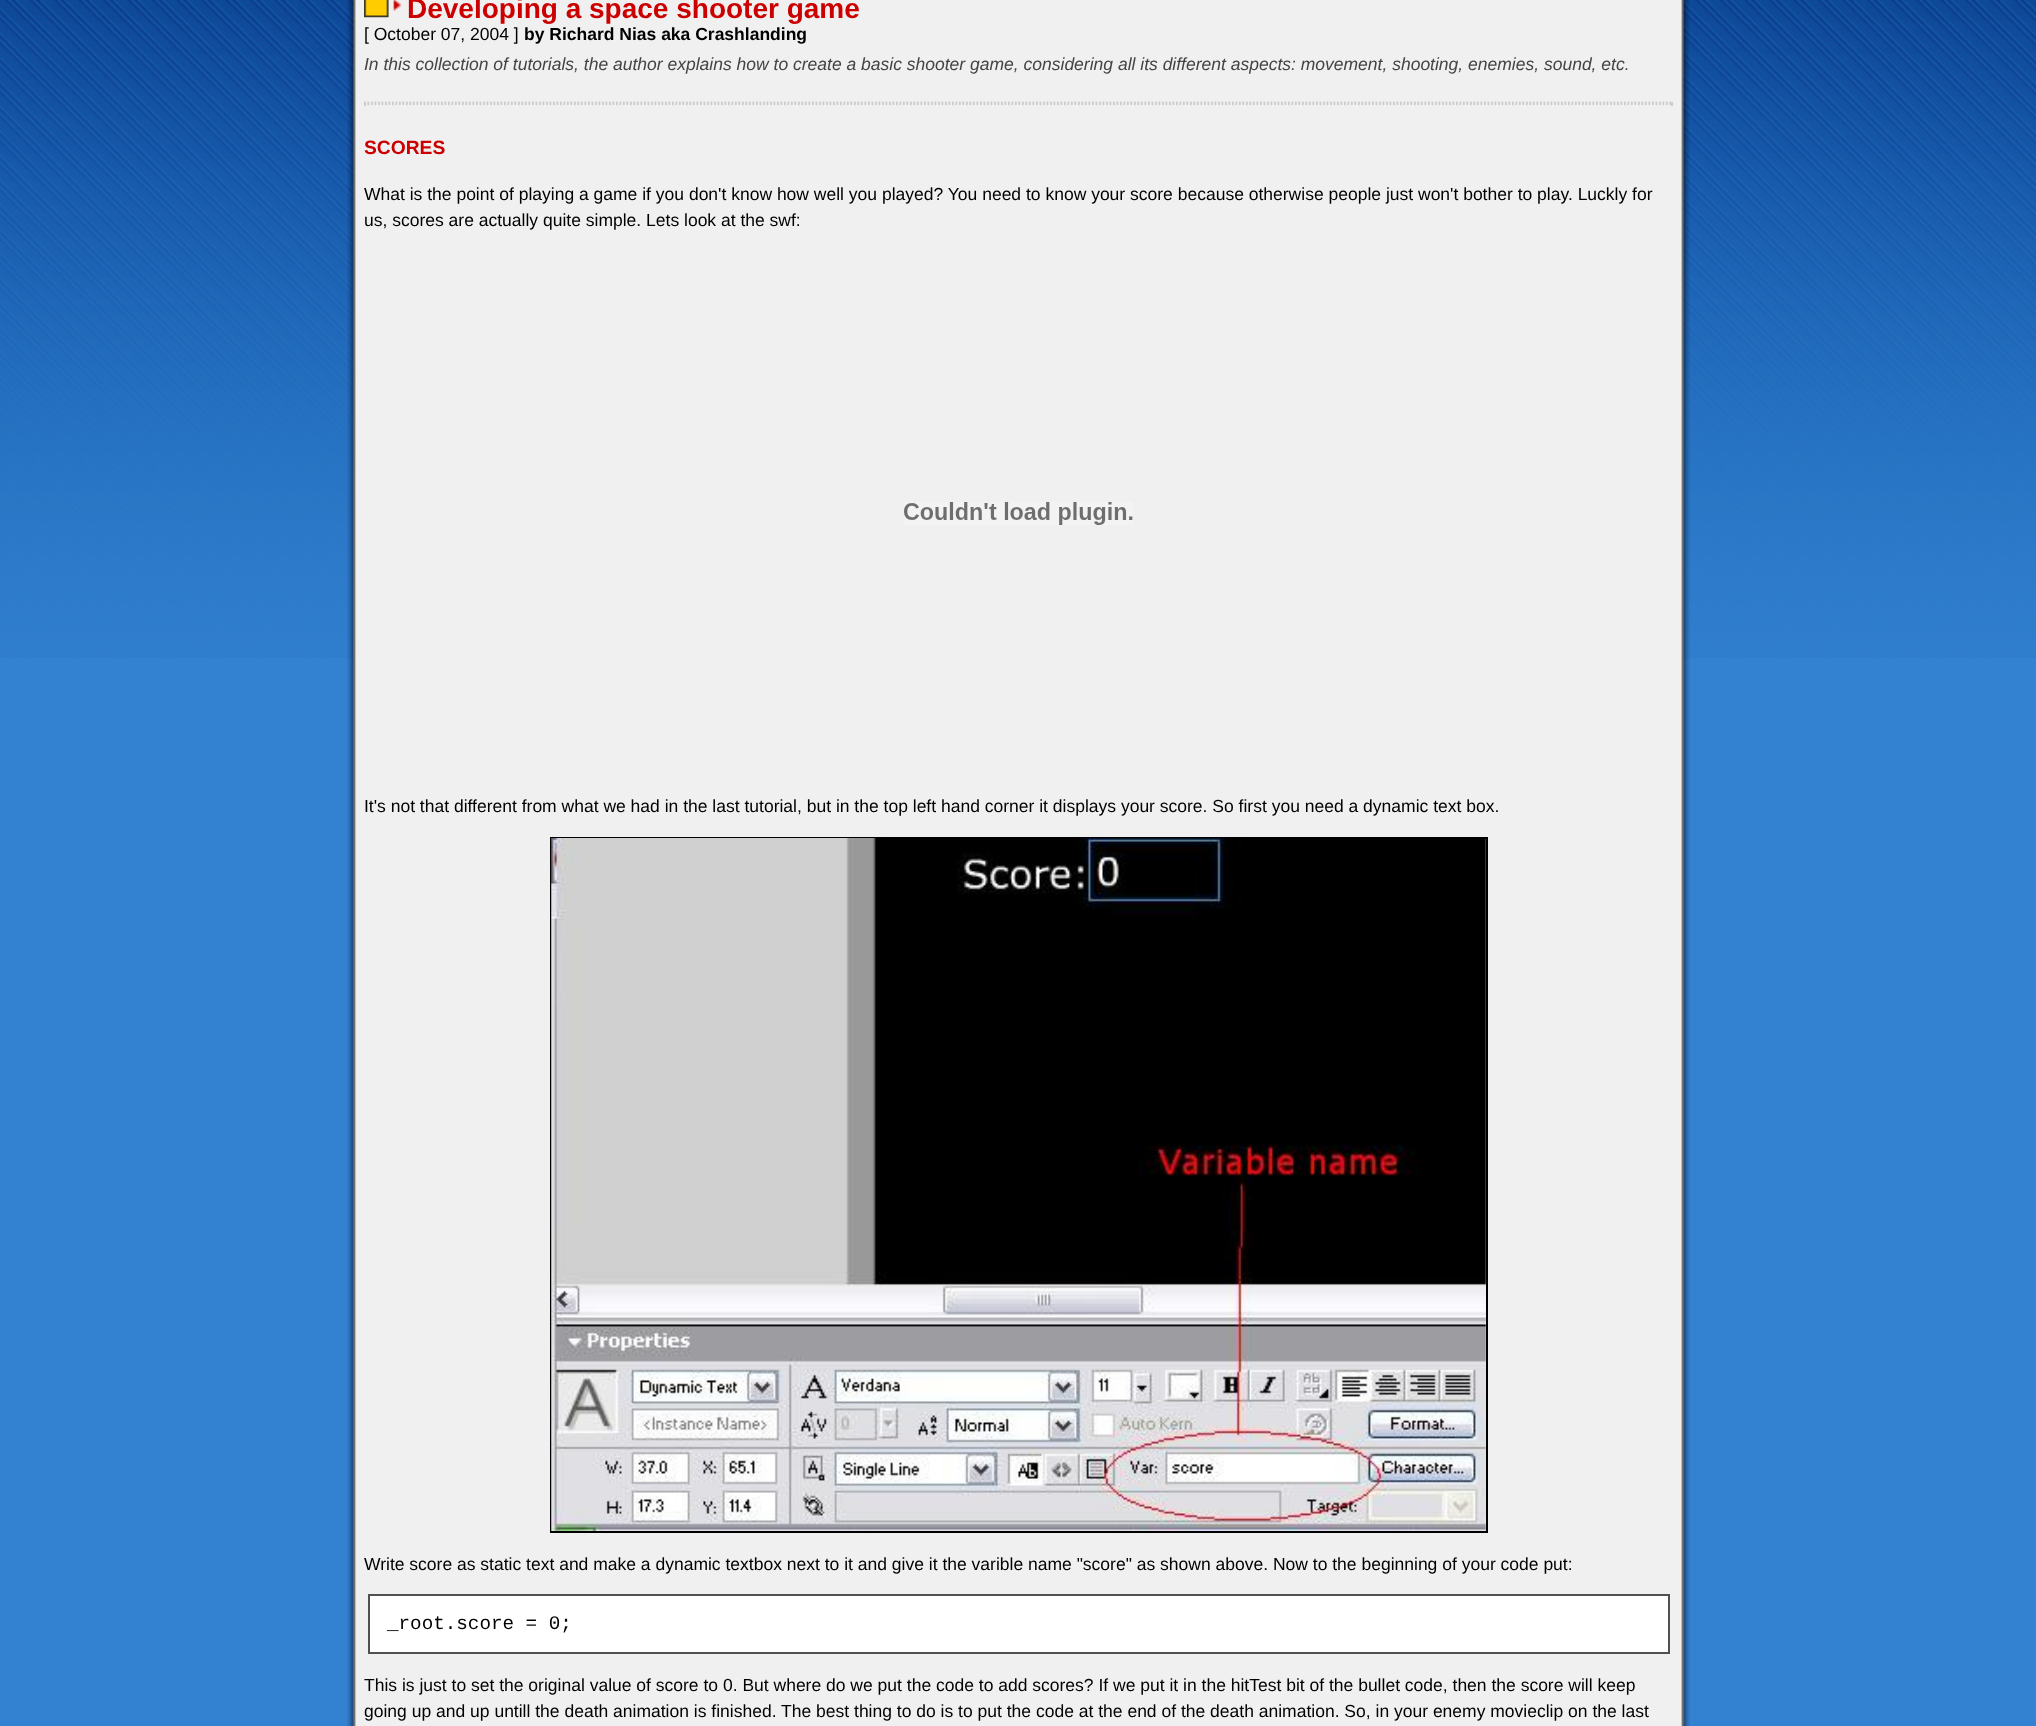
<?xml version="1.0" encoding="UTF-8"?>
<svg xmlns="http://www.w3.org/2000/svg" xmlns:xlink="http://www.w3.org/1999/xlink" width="2036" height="1726">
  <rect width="100%" height="100%" fill="#3381d1" />
  <image x="0" y="0" width="2036" height="658" xlink:href="image1.png" />
  <image x="347" y="0" width="7" height="1726" xlink:href="image2.png" />
  <image x="1683" y="0" width="7" height="1726" xlink:href="image3.png" />
  <image x="353" y="0" width="1331" height="1726" xlink:href="image4.png" />
  <image x="364" y="0" width="38" height="18" xlink:href="image5.png" />
  <path d="M 364 102.5 h 1309" fill="none" stroke="#cccccc" stroke-width="1.8" stroke-dasharray="1.75 1.75" />
  <rect x="1671" y="102" width="2" height="4" fill="#cccccc" />
  <path d="M 364 104 h 1309" fill="none" stroke="#cccccc" stroke-width="1.8" stroke-dasharray="1.75 1.75" />
  <rect x="364" y="102" width="2" height="4" fill="#cccccc" />
  <image x="904" y="502" width="229" height="23" xlink:href="image6.png" />
  <rect x="551" y="838" width="936" height="694" fill="none" stroke="#000000" stroke-width="2" />
  <image x="551" y="838" width="935" height="693" xlink:href="image7.png" />
  <rect x="369" y="1595" width="1300" height="58" fill="#ffffff" stroke="#505050" stroke-width="2" />
  <text x="407" y="18" style="font-family: Liberation Sans; font-size: 28px; font-weight: bold; fill: #cc0000">Developing a space shooter game</text>
  <text x="364" y="40" style="font-family: Liberation Sans; font-size: 17.5px; fill: #000000">[ October 07, 2004 ]</text>
  <text x="524" y="40" style="font-family: Liberation Sans; font-size: 17.5px; font-weight: bold; fill: #000000">by Richard Nias aka Crashlanding</text>
  <text x="364" y="70" style="font-family: Liberation Sans; font-size: 17.5px; font-style: italic; fill: #444444">In this collection of tutorials, the author explains how to create a basic shooter game, considering all its different aspects: movement, shooting, enemies, sound, etc.</text>
  <text x="364" y="154" style="font-family: Liberation Sans; font-size: 19.25px; font-weight: bold; fill: #cc0000">SCORES</text>
  <text x="364" y="200" style="font-family: Liberation Sans; font-size: 17.5px; fill: #000000">What is the point of playing a game if you don't know how well you played? You need to know your score because otherwise people just won't bother to play. Luckly for</text>
  <text x="364" y="226" style="font-family: Liberation Sans; font-size: 17.5px; fill: #000000">us, scores are actually quite simple. Lets look at the swf:</text>
  <text x="364" y="812" style="font-family: Liberation Sans; font-size: 17.5px; fill: #000000">It's not that different from what we had in the last tutorial, but in the top left hand corner it displays your score. So first you need a dynamic text box.</text>
  <text x="364" y="1570" style="font-family: Liberation Sans; font-size: 17.5px; fill: #000000">Write score as static text and make a dynamic textbox next to it and give it the varible name "score" as shown above. Now to the beginning of your code put:</text>
  <text x="387" y="1629" style="font-family: Liberation Mono; font-size: 19.25px; fill: #000000">_root.score = 0;</text>
  <text x="364" y="1691" style="font-family: Liberation Sans; font-size: 17.5px; fill: #000000">This is just to set the original value of score to 0. But where do we put the code to add scores? If we put it in the hitTest bit of the bullet code, then the score will keep</text>
  <text x="364" y="1717" style="font-family: Liberation Sans; font-size: 17.5px; fill: #000000">going up and up untill the death animation is finished. The best thing to do is to put the code at the end of the death animation. So, in your enemy movieclip on the last</text>
</svg>
